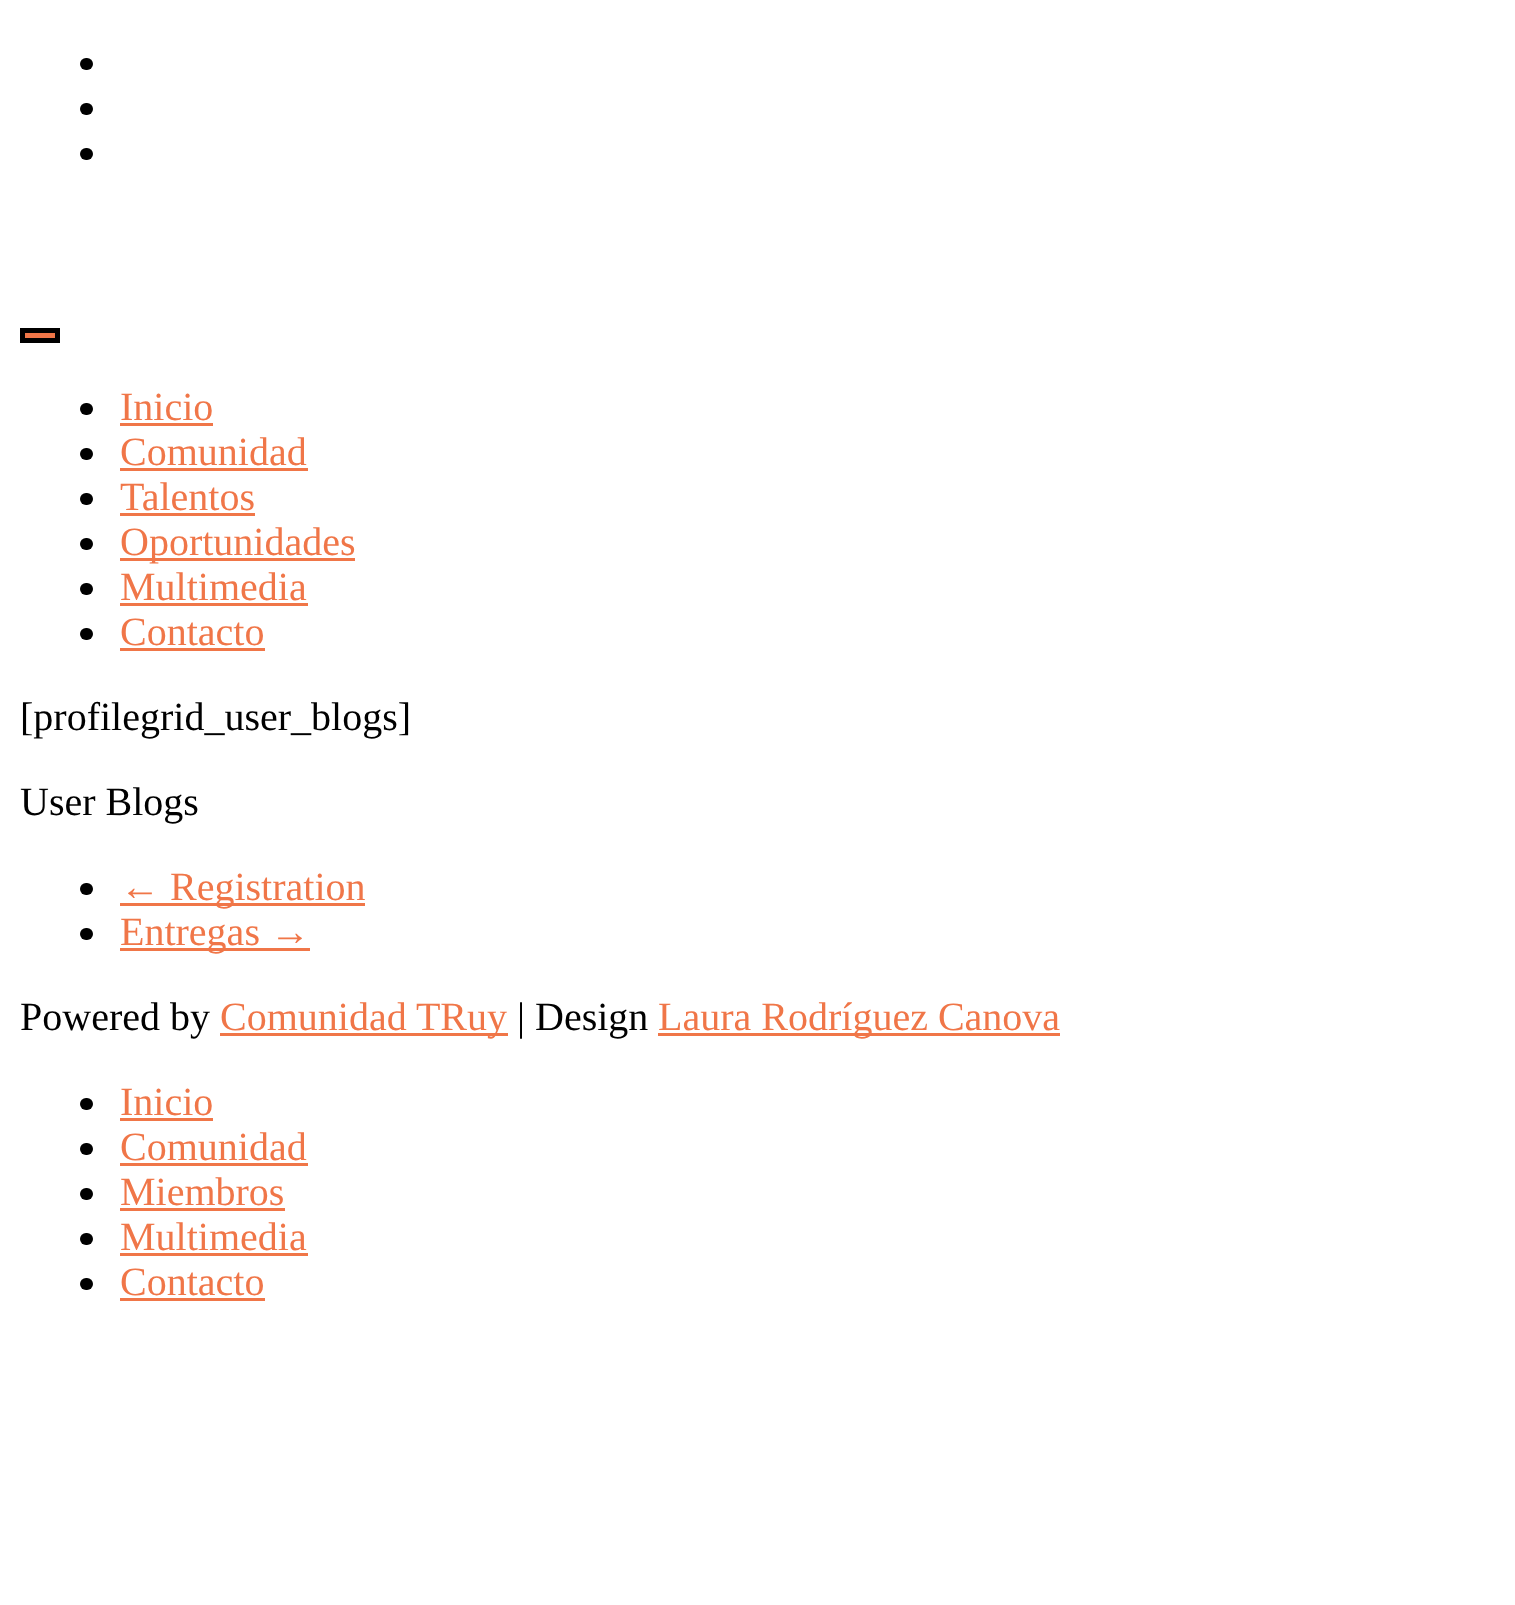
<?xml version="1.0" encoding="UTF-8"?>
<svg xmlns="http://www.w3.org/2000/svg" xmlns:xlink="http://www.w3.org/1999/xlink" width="1515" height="1605">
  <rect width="100%" height="100%" fill="#ffffff" />
  <rect x="80" y="58" width="13" height="12" rx="6" fill="#000000" />
  <rect x="80" y="103" width="13" height="12" rx="6" fill="#000000" />
  <rect x="80" y="148" width="13" height="12" rx="6" fill="#000000" />
  <rect x="22.5" y="330.5" width="35" height="10" fill="#f07648" stroke="#000000" stroke-width="5" />
  <rect x="80" y="403" width="13" height="12" rx="6" fill="#000000" />
  <rect x="120" y="423" width="93" height="3" fill="#f07648" />
  <rect x="80" y="448" width="13" height="12" rx="6" fill="#000000" />
  <rect x="120" y="468" width="188" height="3" fill="#f07648" />
  <rect x="80" y="493" width="13" height="12" rx="6" fill="#000000" />
  <rect x="120" y="513" width="135" height="3" fill="#f07648" />
  <rect x="80" y="538" width="13" height="12" rx="6" fill="#000000" />
  <rect x="120" y="558" width="235" height="3" fill="#f07648" />
  <rect x="80" y="583" width="13" height="12" rx="6" fill="#000000" />
  <rect x="120" y="603" width="188" height="3" fill="#f07648" />
  <rect x="80" y="628" width="13" height="12" rx="6" fill="#000000" />
  <rect x="120" y="648" width="145" height="3" fill="#f07648" />
  <rect x="80" y="883" width="13" height="12" rx="6" fill="#000000" />
  <rect x="120" y="903" width="245" height="3" fill="#f07648" />
  <rect x="80" y="928" width="13" height="12" rx="6" fill="#000000" />
  <rect x="120" y="948" width="190" height="3" fill="#f07648" />
  <rect x="220" y="1033" width="288" height="3" fill="#f07648" />
  <rect x="658" y="1033" width="402" height="3" fill="#f07648" />
  <rect x="80" y="1098" width="13" height="12" rx="6" fill="#000000" />
  <rect x="120" y="1118" width="93" height="3" fill="#f07648" />
  <rect x="80" y="1143" width="13" height="12" rx="6" fill="#000000" />
  <rect x="120" y="1163" width="188" height="3" fill="#f07648" />
  <rect x="80" y="1188" width="13" height="12" rx="6" fill="#000000" />
  <rect x="120" y="1208" width="165" height="3" fill="#f07648" />
  <rect x="80" y="1233" width="13" height="12" rx="6" fill="#000000" />
  <rect x="120" y="1253" width="188" height="3" fill="#f07648" />
  <rect x="80" y="1278" width="13" height="12" rx="6" fill="#000000" />
  <rect x="120" y="1298" width="145" height="3" fill="#f07648" />
  <text x="120" y="420" style="font-family: Liberation Serif; font-size: 40px; fill: #f07648">Inicio</text>
  <text x="120" y="465" style="font-family: Liberation Serif; font-size: 40px; fill: #f07648">Comunidad</text>
  <text x="120" y="510" style="font-family: Liberation Serif; font-size: 40px; fill: #f07648">Talentos</text>
  <text x="120" y="555" style="font-family: Liberation Serif; font-size: 40px; fill: #f07648">Oportunidades</text>
  <text x="120" y="600" style="font-family: Liberation Serif; font-size: 40px; fill: #f07648">Multimedia</text>
  <text x="120" y="645" style="font-family: Liberation Serif; font-size: 40px; fill: #f07648">Contacto</text>
  <text x="20" y="730" style="font-family: Liberation Serif; font-size: 40px; fill: #000000">[profilegrid_user_blogs]</text>
  <text x="20" y="815" style="font-family: Liberation Serif; font-size: 40px; fill: #000000">User Blogs</text>
  <text x="120" y="900" style="font-family: Liberation Serif; font-size: 40px; fill: #f07648">← Registration</text>
  <text x="120" y="945" style="font-family: Liberation Serif; font-size: 40px; fill: #f07648">Entregas →</text>
  <text x="20" y="1030" style="font-family: Liberation Serif; font-size: 40px; fill: #000000">Powered by</text>
  <text x="220" y="1030" style="font-family: Liberation Serif; font-size: 40px; fill: #f07648">Comunidad TRuy</text>
  <text x="517" y="1030" style="font-family: Liberation Serif; font-size: 40px; fill: #000000">| Design</text>
  <text x="658" y="1030" style="font-family: Liberation Serif; font-size: 40px; fill: #f07648">Laura Rodríguez Canova</text>
  <text x="120" y="1115" style="font-family: Liberation Serif; font-size: 40px; fill: #f07648">Inicio</text>
  <text x="120" y="1160" style="font-family: Liberation Serif; font-size: 40px; fill: #f07648">Comunidad</text>
  <text x="120" y="1205" style="font-family: Liberation Serif; font-size: 40px; fill: #f07648">Miembros</text>
  <text x="120" y="1250" style="font-family: Liberation Serif; font-size: 40px; fill: #f07648">Multimedia</text>
  <text x="120" y="1295" style="font-family: Liberation Serif; font-size: 40px; fill: #f07648">Contacto</text>
</svg>
